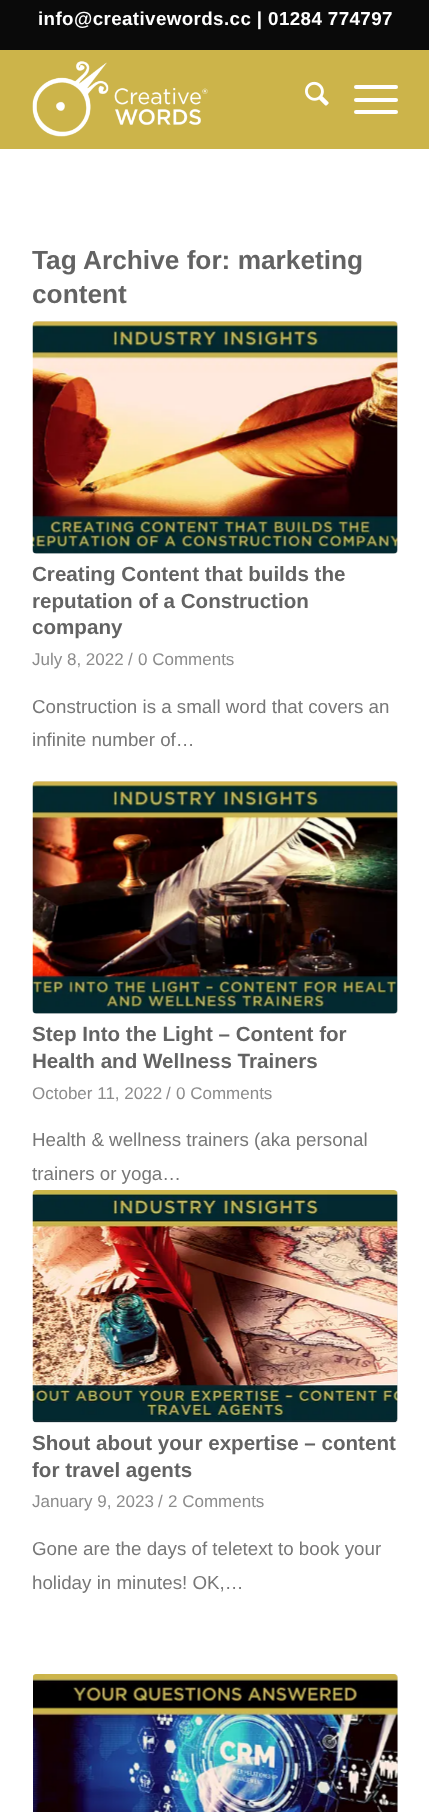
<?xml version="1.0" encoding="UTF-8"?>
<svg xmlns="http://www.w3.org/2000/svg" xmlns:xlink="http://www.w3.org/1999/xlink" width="429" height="1812">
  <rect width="100%" height="100%" fill="#ffffff" />
  <rect width="429" height="50" fill="#0a0a0a" />
  <rect y="50" width="429" height="99" fill="#ccb44a" />
  <image x="32" y="61" width="176" height="76" xlink:href="image1.png" />
  <image x="305" y="81" width="24" height="25" xlink:href="image2.png" />
  <rect x="354" y="98" width="44" height="4" rx="2" fill="#ffffff" />
  <rect x="354" y="85" width="44" height="4" rx="2" fill="#ffffff" />
  <rect x="354" y="110" width="44" height="4" rx="2" fill="#ffffff" />
  <rect x="33" y="321" width="365" height="233" rx="4" fill="#ededed" />
  <image x="32" y="321" width="366" height="233" xlink:href="image3.png" />
  <rect x="33" y="781" width="365" height="233" rx="4" fill="#ededed" />
  <image x="32" y="781" width="366" height="233" xlink:href="image4.png" />
  <rect x="33" y="1190" width="365" height="233" rx="4" fill="#ededed" />
  <image x="32" y="1190" width="366" height="233" xlink:href="image5.png" />
  <rect x="33" y="1674" width="365" height="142" rx="4" fill="#ededed" />
  <image x="33" y="1674" width="365" height="138" xlink:href="image6.png" />
  <text x="38" y="25" style="font-family: Liberation Sans; font-size: 18.75px; font-weight: bold; letter-spacing: 0.4px; fill: #ffffff">info@creativewords.cc | 01284 774797</text>
  <text x="32" y="269" style="font-family: Liberation Sans; font-size: 26.25px; font-weight: bold; fill: #636363">Tag Archive for: marketing</text>
  <text x="32" y="303" style="font-family: Liberation Sans; font-size: 26.25px; font-weight: bold; fill: #636363">content</text>
  <text x="32" y="581" style="font-family: Liberation Sans; font-size: 20.6px; font-weight: bold; fill: #636363">Creating Content that builds the</text>
  <text x="32" y="608" style="font-family: Liberation Sans; font-size: 20.6px; font-weight: bold; fill: #636363">reputation of a Construction</text>
  <text x="32" y="634" style="font-family: Liberation Sans; font-size: 20.6px; font-weight: bold; fill: #636363">company</text>
  <text x="32" y="665" style="font-family: Liberation Sans; font-size: 17px; fill: #8c8c8c">July 8, 2022</text>
  <text x="128" y="665" style="font-family: Liberation Sans; font-size: 17px; fill: #8c8c8c">/</text>
  <text x="138" y="665" style="font-family: Liberation Sans; font-size: 17px; fill: #8c8c8c">0 Comments</text>
  <text x="32" y="713" style="font-family: Liberation Sans; font-size: 18.75px; fill: #777777">Construction is a small word that covers an</text>
  <text x="32" y="746" style="font-family: Liberation Sans; font-size: 18.75px; fill: #777777">infinite number of…</text>
  <text x="32" y="1041" style="font-family: Liberation Sans; font-size: 20.6px; font-weight: bold; fill: #636363">Step Into the Light – Content for</text>
  <text x="32" y="1068" style="font-family: Liberation Sans; font-size: 20.6px; font-weight: bold; fill: #636363">Health and Wellness Trainers</text>
  <text x="32" y="1099" style="font-family: Liberation Sans; font-size: 17px; fill: #8c8c8c">October 11, 2022</text>
  <text x="166" y="1099" style="font-family: Liberation Sans; font-size: 17px; fill: #8c8c8c">/</text>
  <text x="176" y="1099" style="font-family: Liberation Sans; font-size: 17px; fill: #8c8c8c">0 Comments</text>
  <text x="32" y="1146" style="font-family: Liberation Sans; font-size: 18.75px; fill: #777777">Health &amp; wellness trainers (aka personal</text>
  <text x="32" y="1180" style="font-family: Liberation Sans; font-size: 18.75px; fill: #777777">trainers or yoga…</text>
  <text x="32" y="1450" style="font-family: Liberation Sans; font-size: 20.6px; font-weight: bold; fill: #636363">Shout about your expertise – content</text>
  <text x="32" y="1477" style="font-family: Liberation Sans; font-size: 20.6px; font-weight: bold; fill: #636363">for travel agents</text>
  <text x="32" y="1507" style="font-family: Liberation Sans; font-size: 17px; fill: #8c8c8c">January 9, 2023</text>
  <text x="158" y="1507" style="font-family: Liberation Sans; font-size: 17px; fill: #8c8c8c">/</text>
  <text x="168" y="1507" style="font-family: Liberation Sans; font-size: 17px; fill: #8c8c8c">2 Comments</text>
  <text x="32" y="1555" style="font-family: Liberation Sans; font-size: 18.75px; fill: #777777">Gone are the days of teletext to book your</text>
  <text x="32" y="1589" style="font-family: Liberation Sans; font-size: 18.75px; fill: #777777">holiday in minutes! OK,…</text>
</svg>
